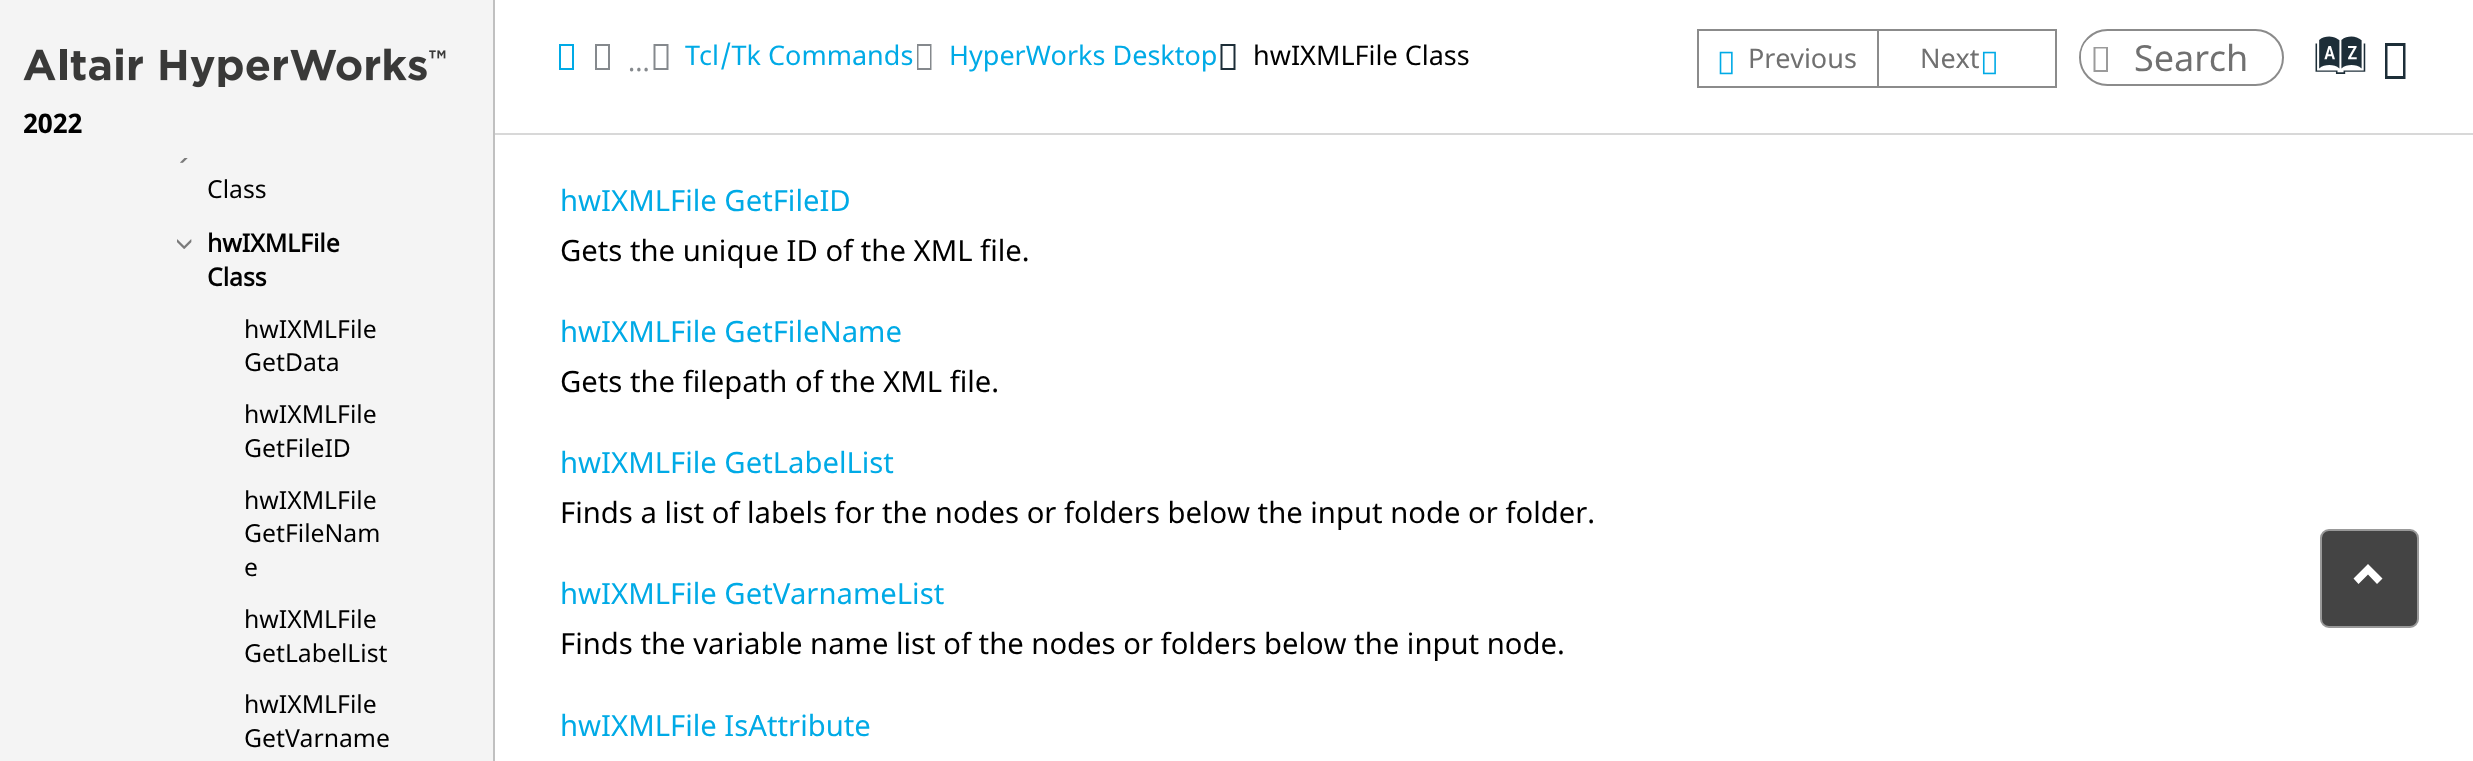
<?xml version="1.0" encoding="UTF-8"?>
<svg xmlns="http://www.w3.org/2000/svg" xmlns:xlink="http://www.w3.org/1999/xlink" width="2473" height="761">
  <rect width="100%" height="100%" fill="#ffffff" />
  <rect width="493" height="761" fill="#f4f4f4" />
  <rect x="493" width="2" height="761" fill="#c0c0c0" />
  <image x="23" y="48" width="423" height="40" xlink:href="image1.png" />
  <image x="180" y="158" width="8" height="5" xlink:href="image2.png" />
  <image x="177" y="239" width="15" height="10" xlink:href="image3.png" />
  <rect x="495" y="133" width="1978" height="2" fill="#d8d8d8" />
  <path d="M 559 70 v -26 h 15 v 26 z m 2 -2 h 11 v -22 h -11 z" fill="#00aae6" />
  <path d="M 653.5 70 v -26 h 15 v 26 z m 2 -2 h 11 v -22 h -11 z" fill="#85898d" />
  <path d="M 917 70 v -26 h 14.5 v 26 z m 1.5 -2 h 11.5 v -22 h -11.5 z" fill="#85898d" />
  <path d="M 1220.5 70 v -26 h 15 v 26 z m 2 -2 h 11 v -22 h -11 z" fill="#1d2e38" />
  <path d="M 595 70 v -26 h 15 v 26 z m 2 -2 h 11 v -22 h -11 z" fill="#85898d" />
  <rect x="1697" y="29" width="180" height="2" fill="#8b8b8b" />
  <rect x="1697" y="86" width="180" height="2" fill="#8b8b8b" />
  <rect x="1697" y="29" width="2" height="59" fill="#8b8b8b" />
  <image x="1719" y="51" width="14" height="24" xlink:href="image4.png" />
  <rect x="1878" y="30" width="178" height="57" fill="none" stroke="#8b8b8b" stroke-width="2" />
  <image x="1982" y="51" width="14" height="24" xlink:href="image5.png" />
  <rect x="2080" y="30" width="203" height="55" rx="27.5" fill="none" stroke="#8b8b8b" stroke-width="2" />
  <rect x="2081" y="34" width="45" height="43" rx="21.5" fill="#ffffff" />
  <path d="M 2093.5 72 v -25 h 14.5 v 25 z m 2 -2 h 10.5 v -21.5 h -10.5 z" fill="#9b9b9b" />
  <path d="M 2385 79 v -36 h 20.5 v 36 z m 2.5 -3 h 15.5 v -30 h -15.5 z" fill="#1d2e38" />
  <rect x="2321" y="530" width="97" height="97" rx="8" fill="#444444" stroke="#999999" stroke-width="2" />
  <path d="M 2382.5 578.5 l -5.5 5.5 l -9 -9.5 l -9.5 9.5 l -5 -5.5 l 14.5 -14.5 z" fill="#ffffff" />
  <text x="23" y="133" style="font-family: 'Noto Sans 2'; font-size: 27px; font-weight: bold; fill: #000000">2022</text>
  <text x="207" y="198" style="font-family: Noto Sans; font-size: 24.75px; fill: #000000">Class</text>
  <text x="207" y="252" style="font-family: Noto Sans; font-size: 24.75px; font-weight: bold; fill: #000000">hwIXMLFile</text>
  <text x="207" y="286" style="font-family: Noto Sans; font-size: 24.75px; font-weight: bold; fill: #000000">Class</text>
  <text x="244" y="338" style="font-family: Noto Sans; font-size: 24.75px; fill: #000000">hwIXMLFile</text>
  <text x="244" y="371" style="font-family: Noto Sans; font-size: 24.75px; fill: #000000">GetData</text>
  <text x="244" y="423" style="font-family: Noto Sans; font-size: 24.75px; fill: #000000">hwIXMLFile</text>
  <text x="244" y="457" style="font-family: Noto Sans; font-size: 24.75px; fill: #000000">GetFileID</text>
  <text x="244" y="509" style="font-family: Noto Sans; font-size: 24.75px; fill: #000000">hwIXMLFile</text>
  <text x="244" y="542" style="font-family: Noto Sans; font-size: 24.75px; fill: #000000">GetFileNam</text>
  <text x="244" y="576" style="font-family: Noto Sans; font-size: 24.75px; fill: #000000">e</text>
  <text x="244" y="628" style="font-family: Noto Sans; font-size: 24.75px; fill: #000000">hwIXMLFile</text>
  <text x="244" y="662" style="font-family: Noto Sans; font-size: 24.75px; fill: #000000">GetLabelList</text>
  <text x="244" y="713" style="font-family: Noto Sans; font-size: 24.75px; fill: #000000">hwIXMLFile</text>
  <text x="244" y="747" style="font-family: Noto Sans; font-size: 24.75px; fill: #000000">GetVarname</text>
  <text x="685" y="65" style="font-family: Noto Sans; font-size: 27px; fill: #00aae6">Tcl</text>
  <text x="720" y="65" style="font-family: Noto Sans; font-size: 27px; fill: #00aae6">/Tk Commands</text>
  <text x="949" y="65" style="font-family: Noto Sans; font-size: 27px; fill: #00aae6">HyperWorks Desktop</text>
  <text x="1253" y="65" style="font-family: Noto Sans; font-size: 27px; fill: #000000">hwIXMLFile Class</text>
  <text x="628" y="71" style="font-family: Noto Sans; font-size: 27px; fill: #85898d">...</text>
  <text x="1748" y="68" style="font-family: Noto Sans; font-size: 27px; fill: #707070">Previous</text>
  <text x="1920" y="68" style="font-family: Noto Sans; font-size: 27px; fill: #707070">Next</text>
  <text x="2134" y="71" style="font-family: Noto Sans; font-size: 36px; fill: #707070">Search</text>
  <text x="2321" y="80" style="font-family: Oxygen; font-size: 53px; fill: #1d2e38">a</text>
  <text x="560" y="211" style="font-family: Noto Sans; font-size: 29.25px; fill: #00aae6">hwIXMLFile GetFileID</text>
  <text x="560" y="261" style="font-family: Noto Sans; font-size: 29.25px; fill: #000000">Gets the unique ID of the XML file.</text>
  <text x="560" y="342" style="font-family: Noto Sans; font-size: 29.25px; fill: #00aae6">hwIXMLFile GetFileName</text>
  <text x="560" y="392" style="font-family: Noto Sans; font-size: 29.25px; fill: #000000">Gets the filepath of the XML file.</text>
  <text x="560" y="473" style="font-family: Noto Sans; font-size: 29.25px; fill: #00aae6">hwIXMLFile GetLabelList</text>
  <text x="560" y="523" style="font-family: Noto Sans; font-size: 29.25px; fill: #000000">Finds a list of labels for the nodes or folders below the input node or folder.</text>
  <text x="560" y="604" style="font-family: Noto Sans; font-size: 29.25px; fill: #00aae6">hwIXMLFile GetVarnameList</text>
  <text x="560" y="654" style="font-family: Noto Sans; font-size: 29.25px; fill: #000000">Finds the variable name list of the nodes or folders below the input node.</text>
  <text x="560" y="736" style="font-family: Noto Sans; font-size: 29.25px; fill: #00aae6">hwIXMLFile IsAttribute</text>
</svg>
